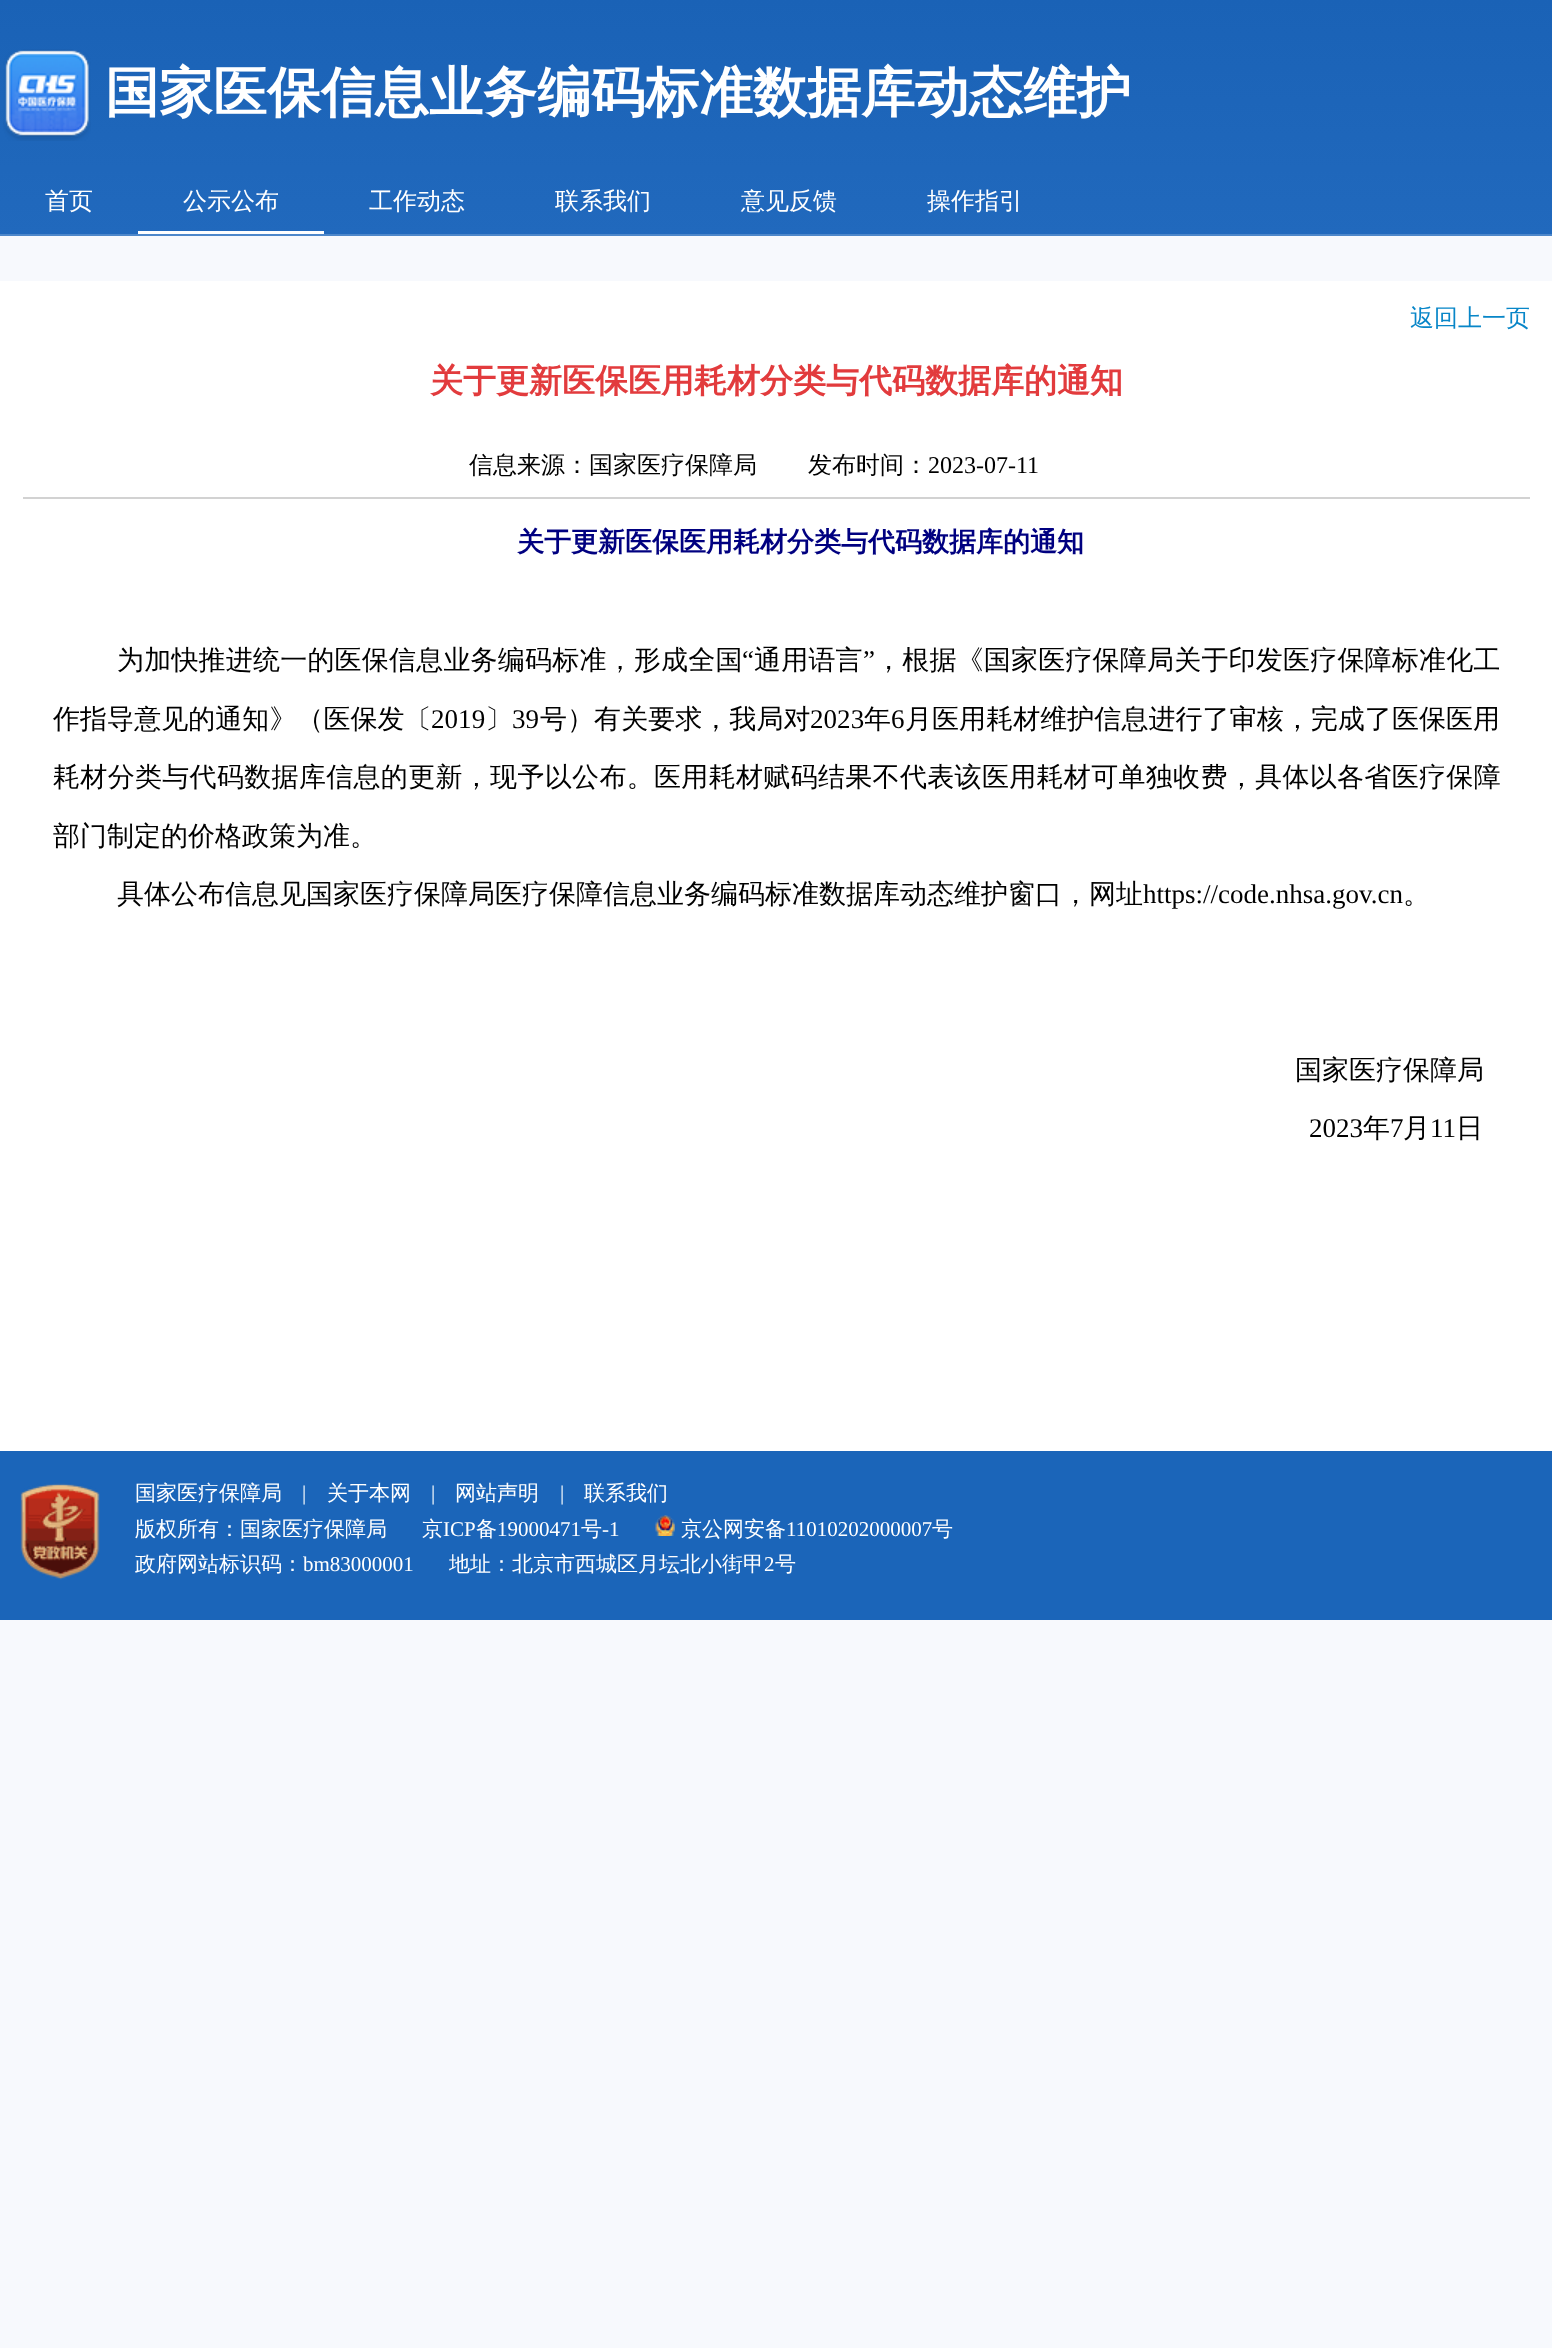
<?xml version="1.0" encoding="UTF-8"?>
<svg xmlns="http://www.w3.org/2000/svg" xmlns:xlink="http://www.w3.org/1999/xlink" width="1552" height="2348">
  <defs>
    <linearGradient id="g1" gradientUnits="userSpaceOnUse" x1="776" y1="0" x2="776" y2="236"><stop offset="0" stop-color="#1a62b6" /><stop offset="1" stop-color="#2169bd" /></linearGradient>
  </defs>
  <rect width="100%" height="100%" fill="#f7f9fd" />
  <rect width="1552" height="234" fill="url(#g1)" />
  <image x="3" y="49" width="88" height="92" xlink:href="image1.png" />
  <rect y="234" width="1552" height="2" fill="#4d87ca" />
  <rect x="138" y="231" width="186" height="3" fill="#ffffff" />
  <rect y="281" width="1552" height="1170" fill="#ffffff" />
  <rect x="23" y="497" width="1507" height="2" fill="#d2d2d2" />
  <rect y="1451" width="1552" height="169" fill="#1b65b9" />
  <image x="20" y="1483" width="80" height="97" xlink:href="image2.png" />
  <image x="655" y="1515" width="20" height="21" xlink:href="image3.png" />
  <text x="105" y="111" style="font-family: WenQuanYi Zen Hei; font-size: 54px; font-weight: bold; fill: #ffffff">国家医保信息业务编码标准数据库动态维护</text>
  <text x="45" y="209" style="font-family: WenQuanYi Zen Hei; font-size: 24px; font-weight: 500; fill: #ffffff">首页</text>
  <text x="183" y="209" style="font-family: WenQuanYi Zen Hei; font-size: 24px; font-weight: 500; fill: #ffffff">公示公布</text>
  <text x="369" y="209" style="font-family: WenQuanYi Zen Hei; font-size: 24px; font-weight: 500; fill: #ffffff">工作动态</text>
  <text x="555" y="209" style="font-family: WenQuanYi Zen Hei; font-size: 24px; font-weight: 500; fill: #ffffff">联系我们</text>
  <text x="741" y="209" style="font-family: WenQuanYi Zen Hei; font-size: 24px; font-weight: 500; fill: #ffffff">意见反馈</text>
  <text x="927" y="209" style="font-family: WenQuanYi Zen Hei; font-size: 24px; font-weight: 500; fill: #ffffff">操作指引</text>
  <text x="1410" y="326" style="font-family: WenQuanYi Zen Hei; font-size: 24px; font-weight: 500; fill: #0886c8">返回上一页</text>
  <text x="430" y="392" style="font-family: WenQuanYi Zen Hei; font-size: 33px; font-weight: bold; fill: #e23b3d">关于更新医保医用耗材分类与代码数据库的通知</text>
  <text x="469" y="473" style="font-family: WenQuanYi Zen Hei; font-size: 24px; font-weight: 500; fill: #000000">信息来源：国家医疗保障局</text>
  <text x="808" y="473" style="font-family: WenQuanYi Zen Hei; font-size: 24px; font-weight: 500; fill: #000000">发布时间：</text>
  <text x="928" y="473" style="font-family: Liberation Serif; font-size: 24px; fill: #000000">2023-07-11</text>
  <text x="517" y="551" style="font-family: WenQuanYi Zen Hei; font-size: 27px; font-weight: bold; fill: #000080">关于更新医保医用耗材分类与代码数据库的通知</text>
  <text x="117" y="669" style="font-family: WenQuanYi Zen Hei; font-size: 27px; font-weight: 500; letter-spacing: 0.2px; fill: #000000">为加快推进统一的医保信息业务编码标准，形成全国</text>
  <text x="742" y="669" style="font-family: Liberation Serif; font-size: 27px; letter-spacing: 0.2px; fill: #000000">“</text>
  <text x="754" y="669" style="font-family: WenQuanYi Zen Hei; font-size: 27px; font-weight: 500; letter-spacing: 0.2px; fill: #000000">通用语言</text>
  <text x="863" y="669" style="font-family: Liberation Serif; font-size: 27px; letter-spacing: 0.2px; fill: #000000">”</text>
  <text x="875" y="669" style="font-family: WenQuanYi Zen Hei; font-size: 27px; font-weight: 500; letter-spacing: 0.2px; fill: #000000">，根据《国家医疗保障局关于印发医疗保障标准化工</text>
  <text x="53" y="728" style="font-family: WenQuanYi Zen Hei; font-size: 27px; font-weight: 500; letter-spacing: 0.05px; fill: #000000">作指导意见的通知》（医保发〔</text>
  <text x="431" y="728" style="font-family: Liberation Serif; font-size: 27px; letter-spacing: 0.05px; fill: #000000">2019</text>
  <text x="485" y="728" style="font-family: WenQuanYi Zen Hei; font-size: 27px; font-weight: 500; letter-spacing: 0.05px; fill: #000000">〕</text>
  <text x="512" y="728" style="font-family: Liberation Serif; font-size: 27px; letter-spacing: 0.05px; fill: #000000">39</text>
  <text x="540" y="728" style="font-family: WenQuanYi Zen Hei; font-size: 27px; font-weight: 500; letter-spacing: 0.05px; fill: #000000">号）有关要求，我局对</text>
  <text x="810" y="728" style="font-family: Liberation Serif; font-size: 27px; letter-spacing: 0.05px; fill: #000000">2023</text>
  <text x="864" y="728" style="font-family: WenQuanYi Zen Hei; font-size: 27px; font-weight: 500; letter-spacing: 0.05px; fill: #000000">年</text>
  <text x="891" y="728" style="font-family: Liberation Serif; font-size: 27px; letter-spacing: 0.05px; fill: #000000">6</text>
  <text x="905" y="728" style="font-family: WenQuanYi Zen Hei; font-size: 27px; font-weight: 500; letter-spacing: 0.05px; fill: #000000">月医用耗材维护信息进行了审核，完成了医保医用</text>
  <text x="53" y="786" style="font-family: WenQuanYi Zen Hei; font-size: 27px; font-weight: 500; letter-spacing: 0.32px; fill: #000000">耗材分类与代码数据库信息的更新，现予以公布。医用耗材赋码结果不代表该医用耗材可单独收费，具体以各省医疗保障</text>
  <text x="53" y="845" style="font-family: WenQuanYi Zen Hei; font-size: 27px; font-weight: 500; fill: #000000">部门制定的价格政策为准。</text>
  <text x="117" y="903" style="font-family: WenQuanYi Zen Hei; font-size: 27px; font-weight: 500; fill: #000000">具体公布信息见国家医疗保障局医疗保障信息业务编码标准数据库动态维护窗口，网址</text>
  <text x="1143" y="903" style="font-family: Liberation Serif; font-size: 27px; fill: #000000">https://code.nhsa.gov.cn</text>
  <text x="1403" y="903" style="font-family: WenQuanYi Zen Hei; font-size: 27px; font-weight: 500; fill: #000000">。</text>
  <text x="1295" y="1079" style="font-family: WenQuanYi Zen Hei; font-size: 27px; font-weight: 500; fill: #000000">国家医疗保障局</text>
  <text x="1309" y="1137" style="font-family: Liberation Serif; font-size: 27px; fill: #000000">2023</text>
  <text x="1363" y="1137" style="font-family: WenQuanYi Zen Hei; font-size: 27px; font-weight: 500; fill: #000000">年</text>
  <text x="1390" y="1137" style="font-family: Liberation Serif; font-size: 27px; fill: #000000">7</text>
  <text x="1403" y="1137" style="font-family: WenQuanYi Zen Hei; font-size: 27px; font-weight: 500; fill: #000000">月</text>
  <text x="1430" y="1137" style="font-family: Liberation Serif; font-size: 27px; fill: #000000">11</text>
  <text x="1456" y="1137" style="font-family: WenQuanYi Zen Hei; font-size: 27px; font-weight: 500; fill: #000000">日</text>
  <text x="135" y="1500" style="font-family: WenQuanYi Zen Hei; font-size: 21px; font-weight: 500; fill: #ffffff">国家医疗保障局</text>
  <text x="302" y="1500" style="font-family: Liberation Serif; font-size: 21px; fill: #ffffff">|</text>
  <text x="327" y="1500" style="font-family: WenQuanYi Zen Hei; font-size: 21px; font-weight: 500; fill: #ffffff">关于本网</text>
  <text x="431" y="1500" style="font-family: Liberation Serif; font-size: 21px; fill: #ffffff">|</text>
  <text x="455" y="1500" style="font-family: WenQuanYi Zen Hei; font-size: 21px; font-weight: 500; fill: #ffffff">网站声明</text>
  <text x="560" y="1500" style="font-family: Liberation Serif; font-size: 21px; fill: #ffffff">|</text>
  <text x="584" y="1500" style="font-family: WenQuanYi Zen Hei; font-size: 21px; font-weight: 500; fill: #ffffff">联系我们</text>
  <text x="135" y="1536" style="font-family: WenQuanYi Zen Hei; font-size: 21px; font-weight: 500; fill: #ffffff">版权所有：国家医疗保障局</text>
  <text x="422" y="1536" style="font-family: WenQuanYi Zen Hei; font-size: 21px; font-weight: 500; fill: #ffffff">京</text>
  <text x="443" y="1536" style="font-family: Liberation Serif; font-size: 21px; fill: #ffffff">ICP</text>
  <text x="476" y="1536" style="font-family: WenQuanYi Zen Hei; font-size: 21px; font-weight: 500; fill: #ffffff">备</text>
  <text x="497" y="1536" style="font-family: Liberation Serif; font-size: 21px; fill: #ffffff">19000471</text>
  <text x="581" y="1536" style="font-family: WenQuanYi Zen Hei; font-size: 21px; font-weight: 500; fill: #ffffff">号</text>
  <text x="602" y="1536" style="font-family: Liberation Serif; font-size: 21px; fill: #ffffff">-1</text>
  <text x="681" y="1536" style="font-family: WenQuanYi Zen Hei; font-size: 21px; font-weight: 500; fill: #ffffff">京公网安备</text>
  <text x="786" y="1536" style="font-family: Liberation Serif; font-size: 21px; fill: #ffffff">11010202000007</text>
  <text x="932" y="1536" style="font-family: WenQuanYi Zen Hei; font-size: 21px; font-weight: 500; fill: #ffffff">号</text>
  <text x="135" y="1571" style="font-family: WenQuanYi Zen Hei; font-size: 21px; font-weight: 500; fill: #ffffff">政府网站标识码：</text>
  <text x="303" y="1571" style="font-family: Liberation Serif; font-size: 21px; fill: #ffffff">bm83000001</text>
  <text x="449" y="1571" style="font-family: WenQuanYi Zen Hei; font-size: 21px; font-weight: 500; fill: #ffffff">地址：北京市西城区月坛北小街甲</text>
  <text x="764" y="1571" style="font-family: Liberation Serif; font-size: 21px; fill: #ffffff">2</text>
  <text x="775" y="1571" style="font-family: WenQuanYi Zen Hei; font-size: 21px; font-weight: 500; fill: #ffffff">号</text>
</svg>
